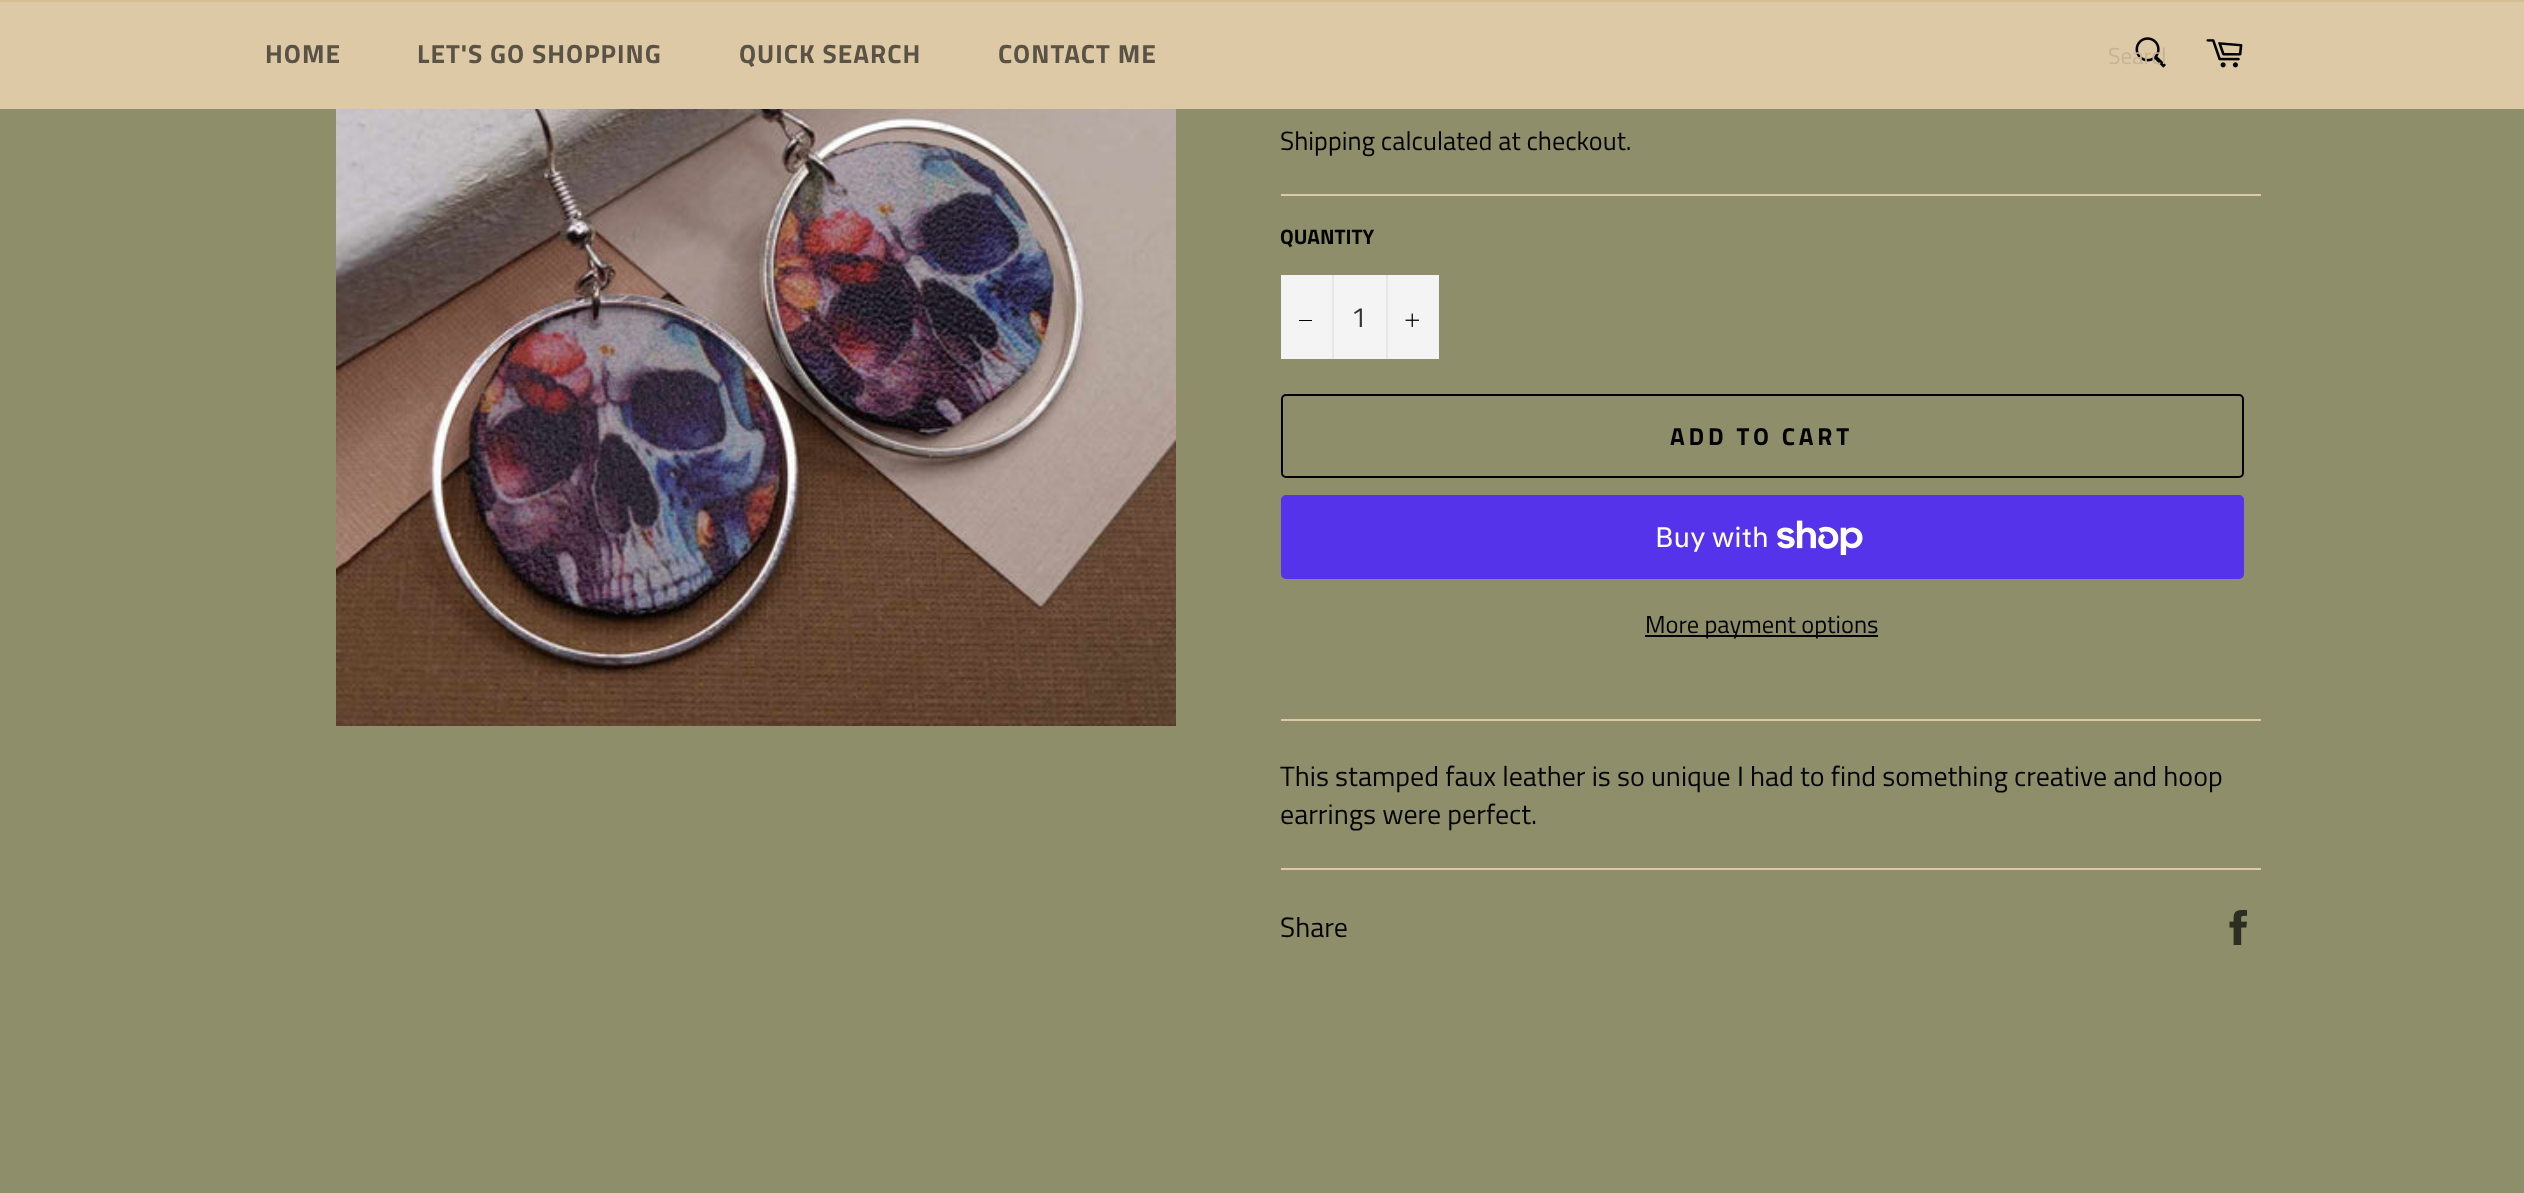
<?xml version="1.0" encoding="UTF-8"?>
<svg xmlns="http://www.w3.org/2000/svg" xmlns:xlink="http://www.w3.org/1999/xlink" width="2524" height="1193">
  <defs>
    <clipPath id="clip1"><rect x="2109" y="37" width="56" height="35" /></clipPath>
  </defs>
  <rect width="100%" height="100%" fill="#8e8e6a" />
  <rect y="2" width="2524" height="107" fill="#ddc9a6" />
  <rect width="2524" height="2" fill="#d6be94" />
  <image x="2135" y="37" width="31" height="31" xlink:href="image1.png" />
  <image x="2206" y="39" width="37" height="29" xlink:href="image2.png" />
  <image x="336" y="109" width="840" height="617" xlink:href="image3.png" />
  <rect x="1281" y="194" width="980" height="2" fill="#ddc9a6" />
  <rect x="1281" y="275" width="158" height="84" fill="#f4f4f4" />
  <rect x="1332" y="275" width="2" height="84" fill="#e7e7e7" />
  <rect x="1299" y="320" width="13" height="1" fill="#030303" />
  <rect x="1386" y="275" width="2" height="84" fill="#e7e7e7" />
  <image x="1405" y="313" width="14" height="14" xlink:href="image4.png" />
  <rect x="1282" y="395" width="961" height="82" rx="4" fill="none" stroke="#030303" stroke-width="2" />
  <rect x="1281" y="495" width="963" height="84" rx="5" fill="#5433eb" />
  <image x="1777" y="520" width="86" height="35" xlink:href="image5.png" />
  <rect x="1645" y="635" width="233" height="2" fill="#030303" />
  <rect x="1281" y="719" width="980" height="2" fill="#ddc9a6" />
  <rect x="1281" y="868" width="980" height="2" fill="#ddc9a6" />
  <image x="2229" y="910" width="18" height="35" xlink:href="image6.png" />
  <text x="265" y="63" style="font-family: Titillium Web; font-size: 26.25px; font-weight: bold; letter-spacing: 1px; fill: #5a5244">HOME</text>
  <text x="417" y="63" style="font-family: Titillium Web; font-size: 26.25px; font-weight: bold; letter-spacing: 1px; fill: #5a5244">LET'S GO SHOPPING</text>
  <text x="739" y="63" style="font-family: Titillium Web; font-size: 26.25px; font-weight: bold; letter-spacing: 1px; fill: #5a5244">QUICK SEARCH</text>
  <text x="998" y="63" style="font-family: Titillium Web; font-size: 26.25px; font-weight: bold; letter-spacing: 1px; fill: #5a5244">CONTACT ME</text>
  <g clip-path="url(#clip1)">
    <text x="2108" y="64" style="font-family: Titillium Web; font-size: 23px; fill: #c5b394">Search</text>
  </g>
  <text x="1280" y="150" style="font-family: Titillium Web; font-size: 26.25px; fill: #030303">Shipping calculated at checkout.</text>
  <text x="1280" y="244" style="font-family: Titillium Web; font-size: 21px; font-weight: bold; fill: #030303">QUANTITY</text>
  <text x="1351" y="327" style="font-family: Titillium Web; font-size: 28px; fill: #333333">1</text>
  <text x="1670" y="445" style="font-family: Titillium Web; font-size: 24.5px; font-weight: bold; letter-spacing: 3.75px; fill: #030303">ADD TO CART</text>
  <text x="1655" y="547" style="font-family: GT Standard; font-size: 28px; fill: #ffffff">Buy with</text>
  <text x="1645" y="633" style="font-family: Titillium Web; font-size: 24.5px; fill: #030303">More payment options</text>
  <text x="1280" y="786" style="font-family: Titillium Web; font-size: 28px; fill: #030303">This stamped faux leather is so unique I had to find something creative and hoop</text>
  <text x="1280" y="824" style="font-family: Titillium Web; font-size: 28px; fill: #030303">earrings were perfect.</text>
  <text x="1280" y="937" style="font-family: Titillium Web; font-size: 28px; fill: #030303">Share</text>
</svg>
